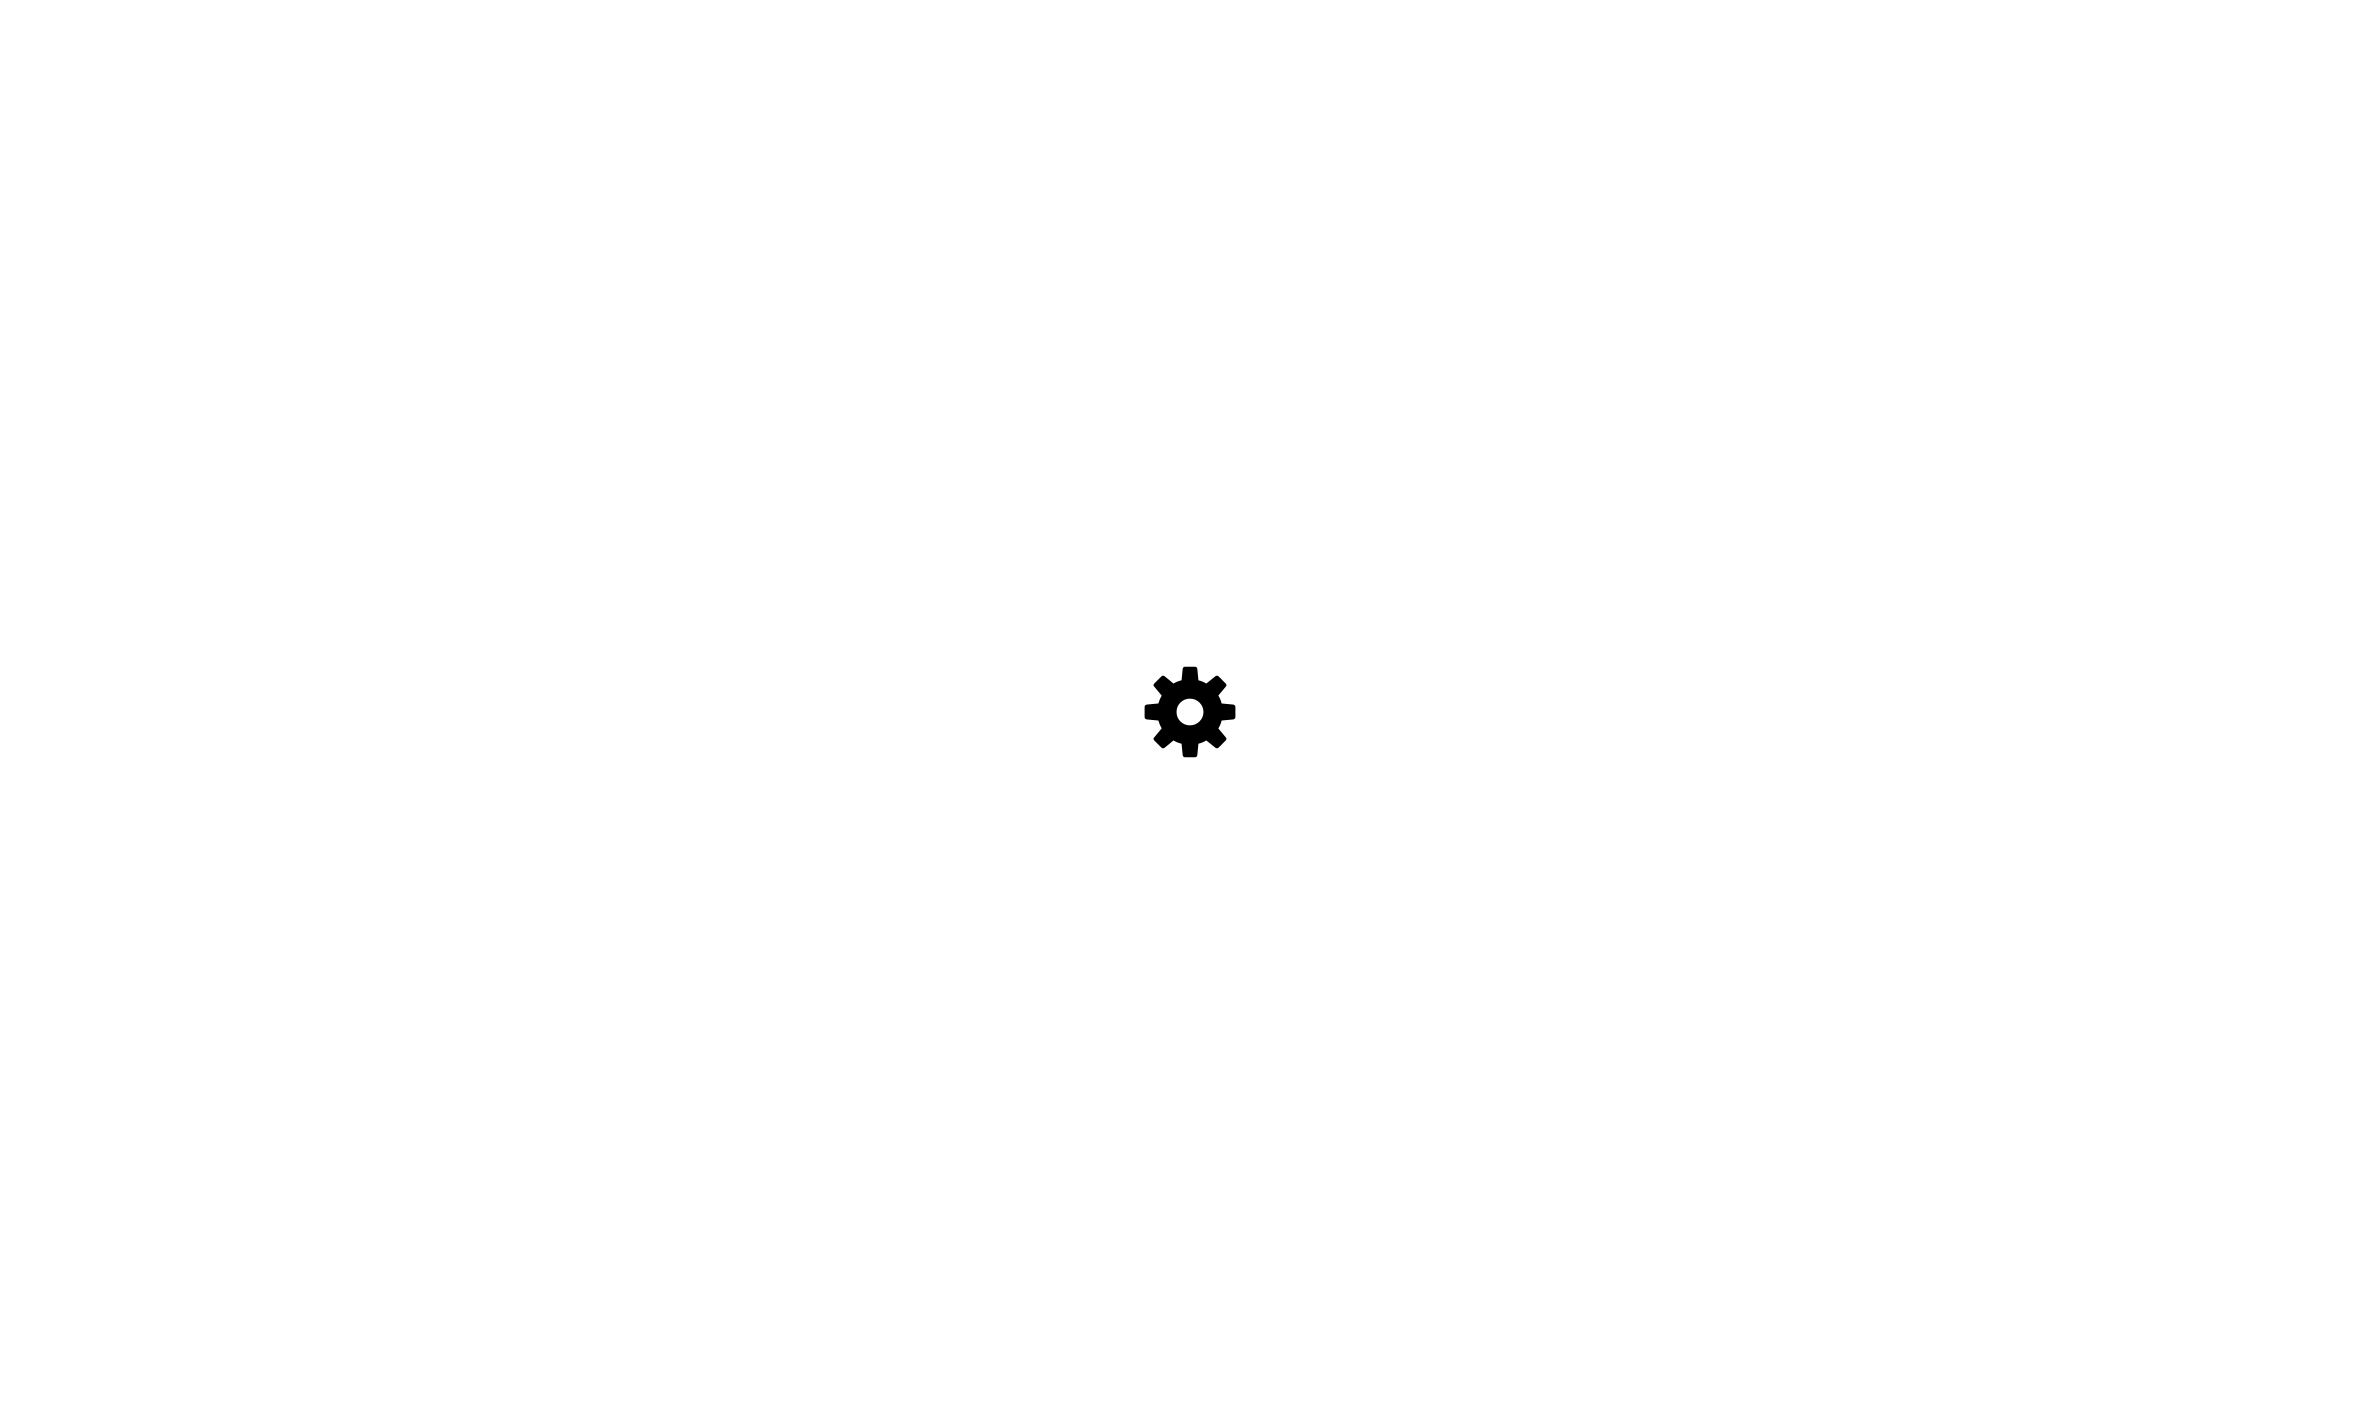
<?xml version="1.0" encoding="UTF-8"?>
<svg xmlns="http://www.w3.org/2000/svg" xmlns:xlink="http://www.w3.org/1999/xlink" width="2380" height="1420">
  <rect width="100%" height="100%" fill="#ffffff" />
  <image x="1144" y="666" width="92" height="92" xlink:href="image1.png" />
</svg>
